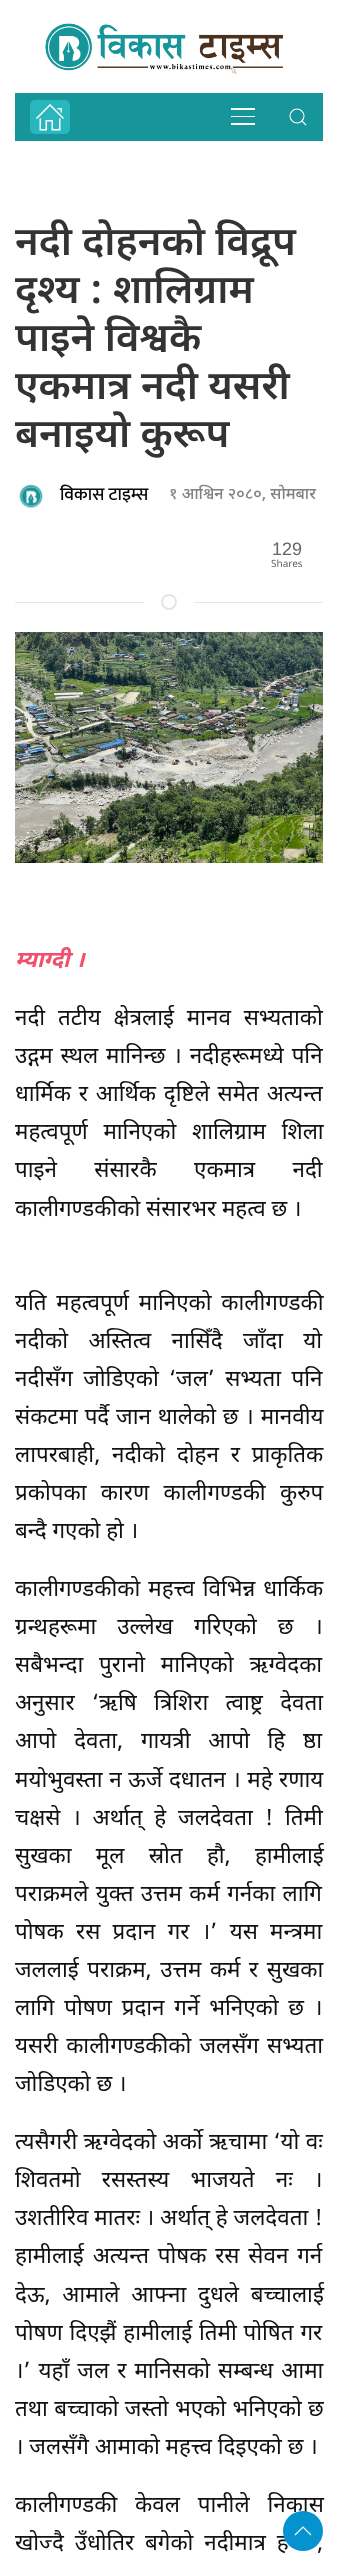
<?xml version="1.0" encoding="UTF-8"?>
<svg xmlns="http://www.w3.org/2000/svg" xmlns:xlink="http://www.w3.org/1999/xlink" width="338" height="2566">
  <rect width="100%" height="100%" fill="#ffffff" />
  <image x="45" y="23" width="238" height="51" xlink:href="image1.png" />
  <rect x="15" y="93" width="308" height="48" fill="#16959a" />
  <rect x="30" y="100" width="40" height="34" rx="5" fill="#28b7bd" />
  <image x="36" y="104" width="28" height="27" xlink:href="image2.png" />
  <rect x="231" y="108" width="24" height="2" fill="#ffffff" />
  <rect x="231" y="116" width="24" height="1" fill="#ffffff" />
  <rect x="231" y="123" width="24" height="2" fill="#ffffff" />
  <circle cx="297" cy="116" r="7" fill="none" stroke="#ffffff" stroke-width="1.1" />
  <path d="M 302 121 l 4 4 z" fill="none" stroke="#ffffff" stroke-width="1.1" />
  <image x="19" y="484" width="26" height="24" xlink:href="image3.png" />
  <circle cx="169" cy="602" r="7" fill="none" stroke="#e5e5e5" stroke-width="2" />
  <rect x="15" y="602" width="129" height="1" fill="#e5e5e5" />
  <rect x="194" y="602" width="129" height="1" fill="#e5e5e5" />
  <image x="15" y="632" width="308" height="231" xlink:href="image4.png" />
  <text x="15" y="255" style="font-family: Noto Sans Devanagari; font-size: 40px; font-weight: 600; fill: #333333">नदी दाेहनकाे विद्रूप</text>
  <text x="15" y="303" style="font-family: Noto Sans Devanagari; font-size: 40px; font-weight: 600; fill: #333333">दृश्य : शालिग्राम</text>
  <text x="15" y="351" style="font-family: Noto Sans Devanagari; font-size: 40px; font-weight: 600; fill: #333333">पाइने विश्वकै</text>
  <text x="15" y="399" style="font-family: Noto Sans Devanagari; font-size: 40px; font-weight: 600; fill: #333333">एकमात्र नदी यसरी</text>
  <text x="15" y="447" style="font-family: Noto Sans Devanagari; font-size: 40px; font-weight: 600; fill: #333333">बनाइयाे कुरूप</text>
  <text x="60" y="500" style="font-family: Mukta; font-size: 18px; font-weight: 500; fill: #040707">विकास टाइम्स</text>
  <text x="169" y="499" style="font-family: Noto Sans Devanagari; font-size: 16px; font-weight: 500; fill: #818285">१ आश्विन २०८०, सोमबार</text>
  <text x="272" y="555" style="font-family: Liberation Sans; font-size: 18px; fill: #666666">129</text>
  <text x="271" y="567" style="font-family: Noto Sans Devanagari; font-size: 10px; fill: #666666">Shares</text>
  <text x="15" y="967" style="font-family: Noto Sans Devanagari; font-size: 22.4px; font-weight: bold; font-style: italic; fill: #f0506e">म्याग्दी ।</text>
  <text x="15" y="1025" word-spacing="7" style="font-family: Noto Sans Devanagari; font-size: 22.4px; fill: #111111">नदी तटीय क्षेत्रलाई मानव सभ्यताको</text>
  <text x="15" y="1063" word-spacing="2" style="font-family: Noto Sans Devanagari; font-size: 22.4px; fill: #111111">उद्गम स्थल मानिन्छ । नदीहरूमध्ये पनि</text>
  <text x="15" y="1101" word-spacing="2" style="font-family: Noto Sans Devanagari; font-size: 22.4px; fill: #111111">धार्मिक र आर्थिक दृष्टिले समेत अत्यन्त</text>
  <text x="15" y="1139" word-spacing="10" style="font-family: Noto Sans Devanagari; font-size: 22.4px; fill: #111111">महत्वपूर्ण मानिएको शालिग्राम शिला</text>
  <text x="15" y="1177" word-spacing="31.5" style="font-family: Noto Sans Devanagari; font-size: 22.4px; fill: #111111">पाइने संसारकै एकमात्र नदी</text>
  <text x="15" y="1216" style="font-family: Noto Sans Devanagari; font-size: 22.4px; fill: #111111">कालीगण्डकीको संसारभर महत्व छ ।</text>
  <text x="15" y="1310" word-spacing="4" style="font-family: Noto Sans Devanagari; font-size: 22.4px; fill: #111111">यति महत्वपूर्ण मानिएको कालीगण्डकी</text>
  <text x="15" y="1348" word-spacing="14.5" style="font-family: Noto Sans Devanagari; font-size: 22.4px; fill: #111111">नदीको अस्तित्व नासिँदै जाँदा यो</text>
  <text x="15" y="1386" word-spacing="4.5" style="font-family: Noto Sans Devanagari; font-size: 22.4px; fill: #111111">नदीसँग जोडिएको ‘जल’ सभ्यता पनि</text>
  <text x="15" y="1424" word-spacing="1" style="font-family: Noto Sans Devanagari; font-size: 22.4px; fill: #111111">संकटमा पर्दै जान थालेको छ । मानवीय</text>
  <text x="15" y="1462" word-spacing="6" style="font-family: Noto Sans Devanagari; font-size: 22.4px; fill: #111111">लापरबाही, नदीको दोहन र प्राकृतिक</text>
  <text x="15" y="1500" word-spacing="8.5" style="font-family: Noto Sans Devanagari; font-size: 22.4px; fill: #111111">प्रकोपका कारण कालीगण्डकी कुरुप</text>
  <text x="15" y="1538" style="font-family: Noto Sans Devanagari; font-size: 22.4px; fill: #111111">बन्दै गएको हो ।</text>
  <text x="15" y="1596" word-spacing="2.25" style="font-family: Noto Sans Devanagari; font-size: 22.4px; fill: #111111">कालीगण्डकीको महत्त्व विभिन्न धार्किक</text>
  <text x="15" y="1634" word-spacing="15" style="font-family: Noto Sans Devanagari; font-size: 22.4px; fill: #111111">ग्रन्थहरूमा उल्लेख गरिएको छ ।</text>
  <text x="15" y="1672" word-spacing="10" style="font-family: Noto Sans Devanagari; font-size: 22.4px; fill: #111111">सबैभन्दा पुरानो मानिएको ऋग्वेदका</text>
  <text x="15" y="1710" word-spacing="11.5" style="font-family: Noto Sans Devanagari; font-size: 22.4px; fill: #111111">अनुसार ‘ऋषि त्रिशिरा त्वाष्ट्र देवता</text>
  <text x="15" y="1748" word-spacing="12" style="font-family: Noto Sans Devanagari; font-size: 22.4px; fill: #111111">आपो देवता, गायत्री आपो हि ष्ठा</text>
  <text x="15" y="1787" word-spacing="0.75" style="font-family: Noto Sans Devanagari; font-size: 22.4px; fill: #111111">मयोभुवस्ता न ऊर्जे दधातन । महे रणाय</text>
  <text x="15" y="1825" word-spacing="6" style="font-family: Noto Sans Devanagari; font-size: 22.4px; fill: #111111">चक्षसे । अर्थात् हे जलदेवता ! तिमी</text>
  <text x="15" y="1863" word-spacing="18.5" style="font-family: Noto Sans Devanagari; font-size: 22.4px; fill: #111111">सुखका मूल स्रोत हौ, हामीलाई</text>
  <text x="15" y="1901" word-spacing="1.5" style="font-family: Noto Sans Devanagari; font-size: 22.4px; fill: #111111">पराक्रमले युक्त उत्तम कर्म गर्नका लागि</text>
  <text x="15" y="1939" word-spacing="6.5" style="font-family: Noto Sans Devanagari; font-size: 22.4px; fill: #111111">पोषक रस प्रदान गर ।’ यस मन्त्रमा</text>
  <text x="15" y="1977" word-spacing="2.75" style="font-family: Noto Sans Devanagari; font-size: 22.4px; fill: #111111">जललाई पराक्रम, उत्तम कर्म र सुखका</text>
  <text x="15" y="2015" word-spacing="4" style="font-family: Noto Sans Devanagari; font-size: 22.4px; fill: #111111">लागि पोषण प्रदान गर्ने भनिएको छ ।</text>
  <text x="15" y="2053" word-spacing="2.25" style="font-family: Noto Sans Devanagari; font-size: 22.4px; fill: #111111">यसरी कालीगण्डकीको जलसँग सभ्यता</text>
  <text x="15" y="2091" style="font-family: Noto Sans Devanagari; font-size: 22.4px; fill: #111111">जोडिएको छ ।</text>
  <text x="15" y="2149" word-spacing="0.5" style="font-family: Noto Sans Devanagari; font-size: 22.4px; fill: #111111">त्यसैगरी ऋग्वेदको अर्को ऋचामा ‘यो वः</text>
  <text x="15" y="2187" word-spacing="15.5" style="font-family: Noto Sans Devanagari; font-size: 22.4px; fill: #111111">शिवतमो रसस्तस्य भाजयते नः ।</text>
  <text x="15" y="2225" style="font-family: Noto Sans Devanagari; font-size: 22.4px; fill: #111111">उशतीरिव मातरः । अर्थात् हे जलदेवता !</text>
  <text x="15" y="2263" word-spacing="3" style="font-family: Noto Sans Devanagari; font-size: 22.4px; fill: #111111">हामीलाई अत्यन्त पोषक रस सेवन गर्न</text>
  <text x="15" y="2302" word-spacing="6" style="font-family: Noto Sans Devanagari; font-size: 22.4px; fill: #111111">देऊ, आमाले आफ्ना दुधले बच्चालाई</text>
  <text x="15" y="2340" word-spacing="1" style="font-family: Noto Sans Devanagari; font-size: 22.4px; fill: #111111">पोषण दिएझैं हामीलाई तिमी पोषित गर</text>
  <text x="15" y="2378" word-spacing="2.25" style="font-family: Noto Sans Devanagari; font-size: 22.4px; fill: #111111">।’ यहाँ जल र मानिसको सम्बन्ध आमा</text>
  <text x="15" y="2416" word-spacing="0.5" style="font-family: Noto Sans Devanagari; font-size: 22.4px; fill: #111111">तथा बच्चाको जस्तो भएको भनिएको छ</text>
  <text x="15" y="2454" style="font-family: Noto Sans Devanagari; font-size: 22.4px; fill: #111111">। जलसँगै आमाको महत्त्व दिइएको छ ।</text>
  <text x="15" y="2512" word-spacing="12" style="font-family: Noto Sans Devanagari; font-size: 22.4px; fill: #111111">कालीगण्डकी केवल पानीले निकास</text>
  <text x="15" y="2550" word-spacing="5" style="font-family: Noto Sans Devanagari; font-size: 22.4px; fill: #111111">खोज्दै उँधोतिर बगेको नदीमात्र ह</text>
  <text x="317" y="2550" word-spacing="5" style="font-family: Noto Sans Devanagari; font-size: 22.4px; fill: #111111">,</text>
  <circle cx="303" cy="2531" r="20" fill="#0593cf" />
  <path d="M 295 2535 l 8 -8 l 8 8" fill="none" stroke="#ffffff" stroke-width="1.2" />
</svg>
